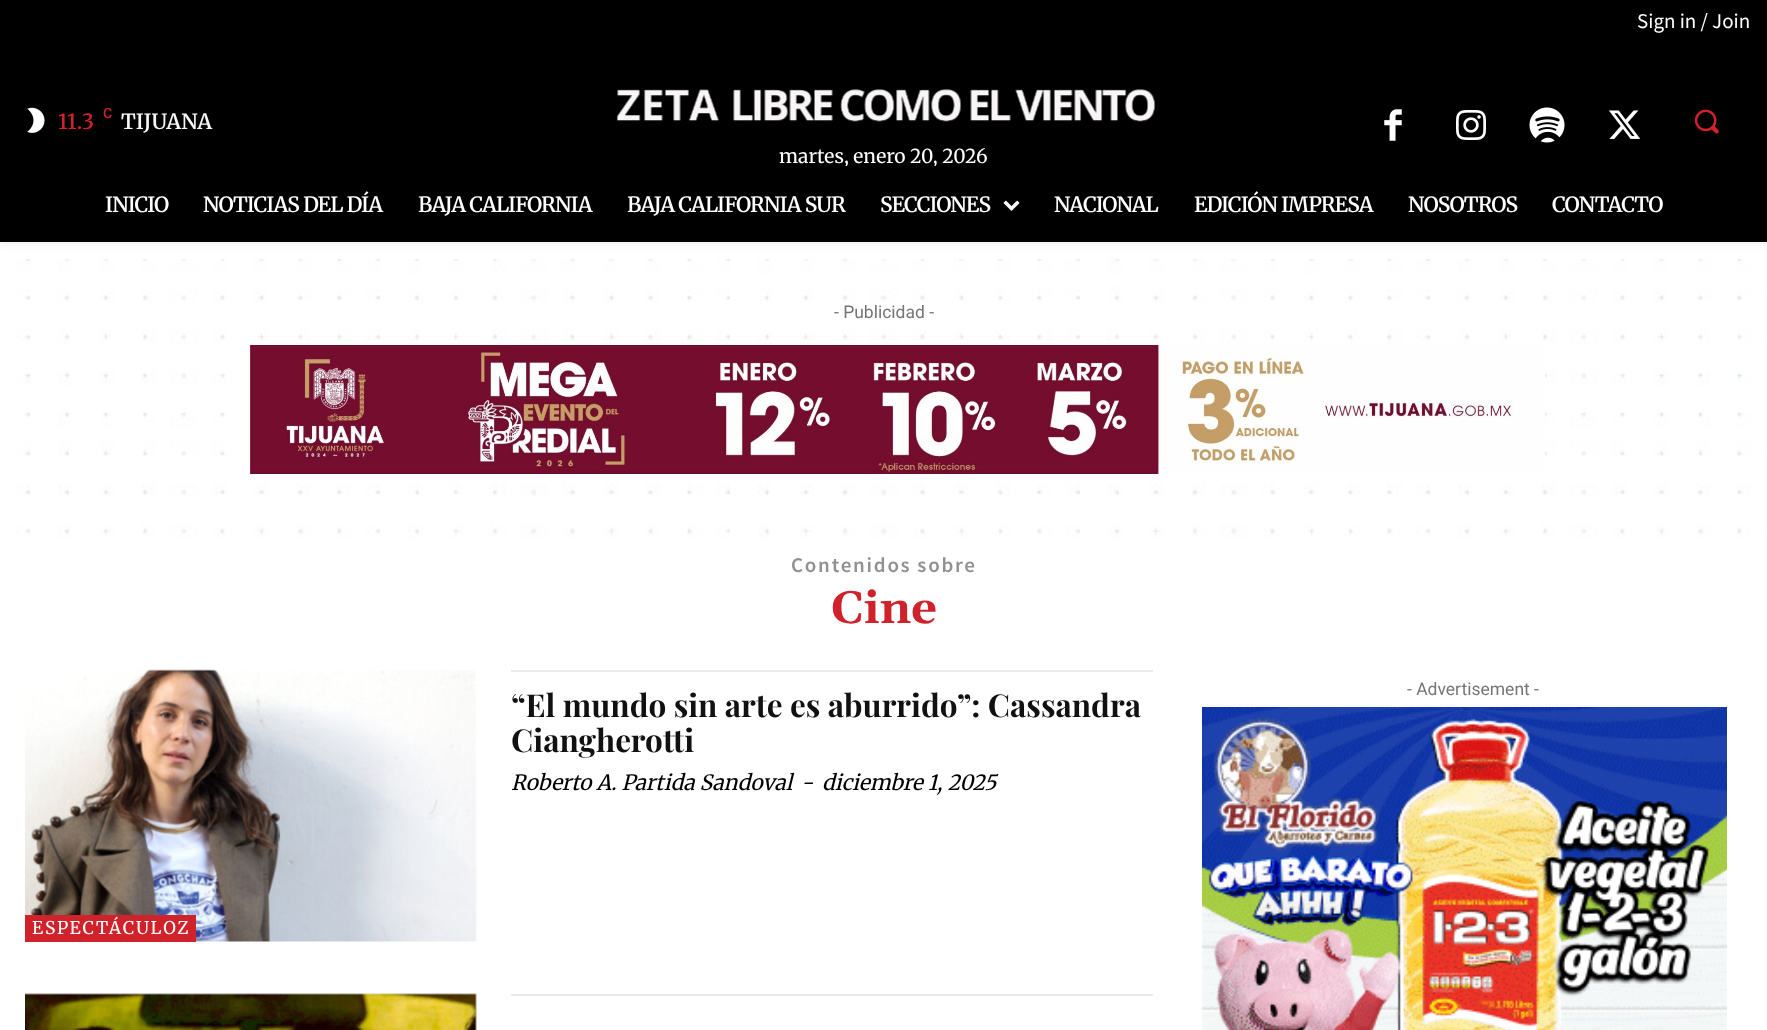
<?xml version="1.0" encoding="UTF-8"?>
<svg xmlns="http://www.w3.org/2000/svg" xmlns:xlink="http://www.w3.org/1999/xlink" width="1767" height="1030">
  <defs>
    <clipPath id="clip1"><path d="M 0 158 h 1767 v 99 h -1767 z m 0 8 h 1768 v 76 h -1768 z" clip-rule="evenodd" /></clipPath>
  </defs>
  <rect width="100%" height="100%" fill="#ffffff" />
  <rect width="1767" height="166" fill="#000000" />
  <image x="27" y="107" width="18" height="26" xlink:href="image1.png" />
  <image x="1384" y="109" width="18" height="32" xlink:href="image2.png" />
  <image x="1456" y="110" width="30" height="30" xlink:href="image3.png" />
  <image x="1529" y="107" width="36" height="36" xlink:href="image4.png" />
  <image x="1608" y="110" width="33" height="29" xlink:href="image5.png" />
  <image x="1694" y="109" width="25" height="25" xlink:href="image6.png" />
  <image x="616" y="89" width="540" height="33" xlink:href="image7.png" />
  <image x="16" y="259" width="1751" height="280" xlink:href="image9.png" />
  <image x="250" y="345" width="1295" height="129" xlink:href="image10.png" />
  <image x="1202" y="707" width="525" height="323" xlink:href="image11.png" />
  <rect x="511" y="670" width="642" height="2" fill="#eaeaea" />
  <image x="25" y="669" width="452" height="273" xlink:href="image12.png" />
  <rect x="25" y="915" width="171" height="27" fill="#d0222b" />
  <image x="25" y="993" width="452" height="37" xlink:href="image13.png" />
  <rect x="511" y="994" width="642" height="2" fill="#eaeaea" />
  <text x="1637" y="28" style="font-family: Source Sans Pro; font-size: 21px; fill: #ffffff">Sign in / Join</text>
  <text x="58" y="129" style="font-family: Merriweather; font-size: 21px; font-weight: 600; fill: #d0222b">11.3</text>
  <text x="103" y="118" style="font-family: Roboto; font-size: 14px; font-weight: 500; fill: #d0222b">C</text>
  <text x="121" y="129" style="font-family: Merriweather; font-size: 21px; font-weight: 600; fill: #f7f7f7">TIJUANA</text>
  <text x="779" y="163" style="font-family: Merriweather; font-size: 19.25px; fill: #ffffff">martes, enero 20, 2026</text>
  <rect y="166" width="1767" height="76" fill="#000000" />
  <g clip-path="url(#clip1)">
    <rect y="170" width="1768" height="75" fill="#000000" fill-opacity="0.06" filter="blur(3.5px)" />
  </g>
  <text x="105" y="212" style="font-family: Merriweather; font-size: 21px; font-weight: 600; letter-spacing: -0.9px; fill: #ffffff">INICIO</text>
  <text x="203" y="212" style="font-family: Merriweather; font-size: 21px; font-weight: 600; letter-spacing: -0.9px; fill: #ffffff">NOTICIAS DEL DÍA</text>
  <text x="418" y="212" style="font-family: Merriweather; font-size: 21px; font-weight: 600; letter-spacing: -0.9px; fill: #ffffff">BAJA CALIFORNIA</text>
  <text x="627" y="212" style="font-family: Merriweather; font-size: 21px; font-weight: 600; letter-spacing: -0.9px; fill: #ffffff">BAJA CALIFORNIA SUR</text>
  <text x="880" y="212" style="font-family: Merriweather; font-size: 21px; font-weight: 600; letter-spacing: -0.9px; fill: #ffffff">SECCIONES</text>
  <image x="1003" y="200" width="17" height="11" xlink:href="image8.png" />
  <text x="1054" y="212" style="font-family: Merriweather; font-size: 21px; font-weight: 600; letter-spacing: -0.9px; fill: #ffffff">NACIONAL</text>
  <text x="1194" y="212" style="font-family: Merriweather; font-size: 21px; font-weight: 600; letter-spacing: -0.9px; fill: #ffffff">EDICIÓN IMPRESA</text>
  <text x="1408" y="212" style="font-family: Merriweather; font-size: 21px; font-weight: 600; letter-spacing: -0.9px; fill: #ffffff">NOSOTROS</text>
  <text x="1552" y="212" style="font-family: Merriweather; font-size: 21px; font-weight: 600; letter-spacing: -0.9px; fill: #ffffff">CONTACTO</text>
  <text x="834" y="318" style="font-family: Roboto; font-size: 17.5px; fill: #767676">- Publicidad -</text>
  <text x="791" y="572" style="font-family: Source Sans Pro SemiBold; font-size: 21px; font-weight: 600; letter-spacing: 1.75px; fill: #919191">Contenidos sobre</text>
  <text x="831" y="623" style="font-family: Gelasio; font-size: 45.5px; font-weight: bold; fill: #d0222b">Cine</text>
  <text x="1407" y="695" style="font-family: Roboto; font-size: 17.5px; fill: #767676">- Advertisement -</text>
  <text x="511" y="717" style="font-family: Playfair Display; font-size: 31.5px; font-weight: bold; fill: #111111">“El mundo sin arte es aburrido”: Cassandra</text>
  <text x="511" y="752" style="font-family: Playfair Display; font-size: 31.5px; font-weight: bold; fill: #111111">Ciangherotti</text>
  <text x="511" y="790" style="font-family: Merriweather; font-size: 21px; font-style: italic; fill: #000000">Roberto A. Partida Sandoval</text>
  <text x="801" y="790" style="font-family: Merriweather; font-size: 21px; font-style: italic; fill: #000000">-</text>
  <text x="822" y="790" style="font-family: Merriweather; font-size: 21px; font-style: italic; fill: #000000">diciembre 1, 2025</text>
  <text x="32" y="934" style="font-family: Merriweather; font-size: 17.5px; letter-spacing: 1.75px; fill: #ffffff">ESPECTÁCULOZ</text>
</svg>
